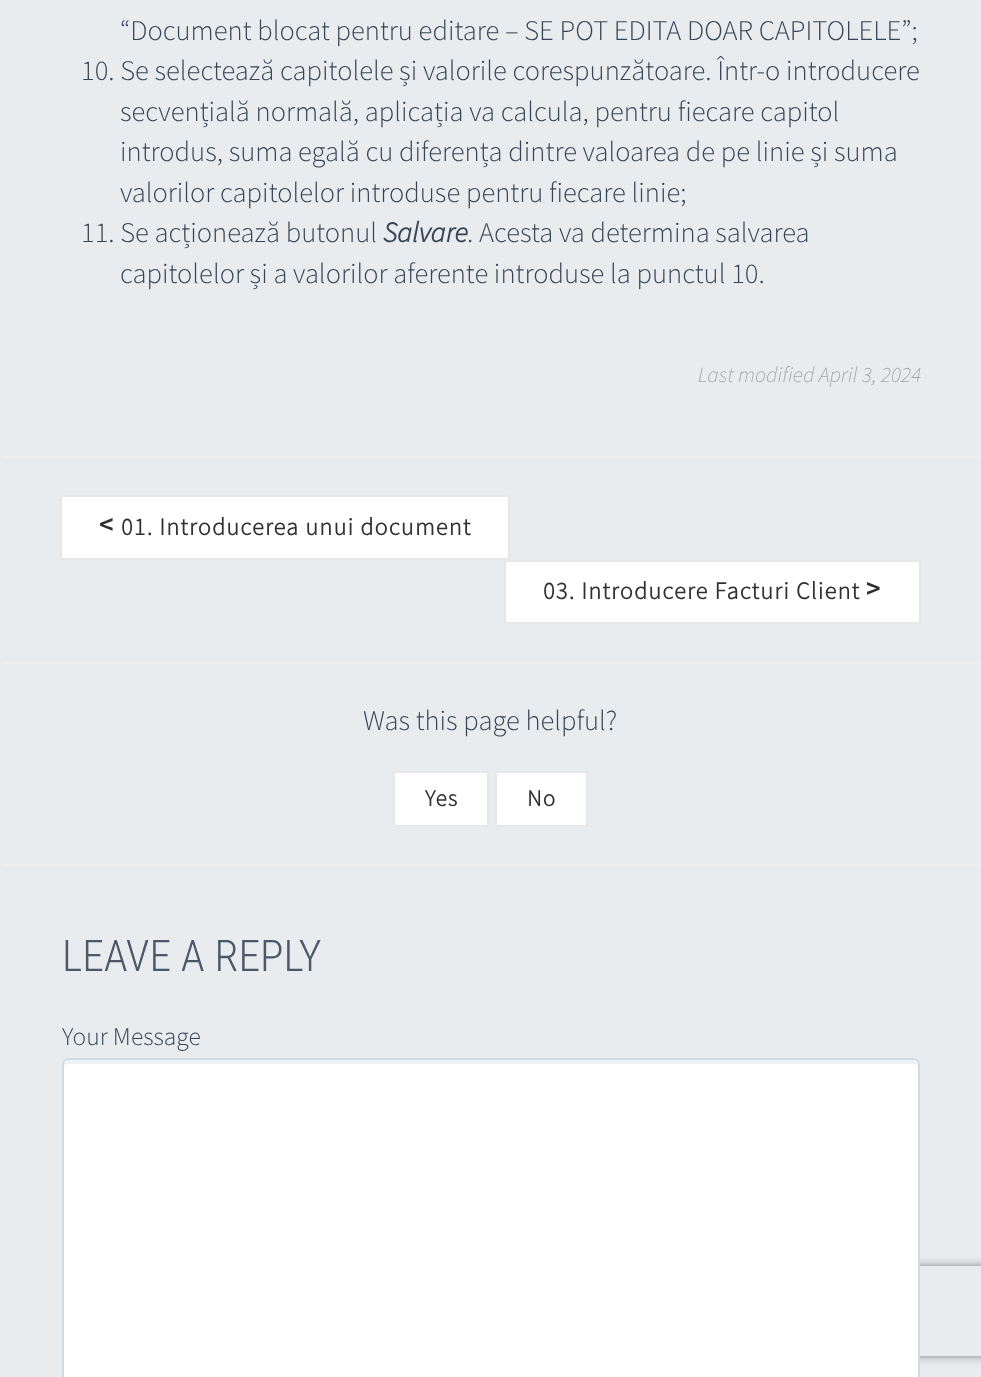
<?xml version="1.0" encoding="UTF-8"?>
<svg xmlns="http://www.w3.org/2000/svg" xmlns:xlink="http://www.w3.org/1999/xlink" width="981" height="1377">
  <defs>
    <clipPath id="clip1"><path d="M 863 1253 h 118 v 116 h -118 z m 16 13 h 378 c 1.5 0 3 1.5 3 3 v 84 c 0 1.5 -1.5 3 -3 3 h -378 c -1.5 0 -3 -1.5 -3 -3 v -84 c 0 -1.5 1.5 -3 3 -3 z" clip-rule="evenodd" /></clipPath>
  </defs>
  <rect width="100%" height="100%" fill="#e8ecef" />
  <rect x="2" y="456" width="978" height="2" fill="#eeeeee" />
  <rect x="61" y="496" width="448" height="63" rx="2" fill="#ffffff" stroke="#e7e7e7" stroke-width="2" />
  <rect x="505" y="561" width="415" height="62" rx="2" fill="#ffffff" stroke="#e7e7e7" stroke-width="2" />
  <rect x="2" y="662" width="978" height="2" fill="#eeeeee" />
  <rect x="394" y="772" width="94" height="54" rx="2" fill="#ffffff" stroke="#e7e7e7" stroke-width="2" />
  <rect x="496" y="772" width="91" height="54" rx="2" fill="#ffffff" stroke="#e7e7e7" stroke-width="2" />
  <rect x="2" y="864" width="978" height="2" fill="#eeeeee" />
  <g clip-path="url(#clip1)">
    <rect x="876" y="1266" width="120" height="90" rx="3" fill="#808080" filter="blur(4px)" />
  </g>
  <rect x="62" y="1058" width="858" height="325" rx="6" fill="#ffffff" />
  <path d="M 68 1064 h 846 c 2 0 4 2 4 4 v -4 c 0 -3 -2 -5 -5 -5 h -845 c -3 0 -5 2 -5 5 v 4 c 0 -2 2 -4 5 -4 z" fill="#eff1f2" />
  <rect x="63" y="1059" width="856" height="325" rx="5" fill="none" stroke="#d2dae1" stroke-width="2" />
  <text x="120" y="40" style="font-family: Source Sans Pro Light; font-size: 28.5px; font-weight: 300; fill: #384554">“Document blocat pentru editare – SE POT EDITA DOAR CAPITOLELE”;</text>
  <text x="81" y="80" style="font-family: Source Sans Pro Light; font-size: 28.5px; font-weight: 300; fill: #384554">10. Se selectează capitolele și valorile corespunzătoare. Într-o introducere</text>
  <text x="120" y="121" style="font-family: Source Sans Pro Light; font-size: 28.5px; font-weight: 300; fill: #384554">secvențială normală, aplicația va calcula, pentru fiecare capitol</text>
  <text x="120" y="161" style="font-family: Source Sans Pro Light; font-size: 28.5px; font-weight: 300; fill: #384554">introdus, suma egală cu diferența dintre valoarea de pe linie și suma</text>
  <text x="120" y="202" style="font-family: Source Sans Pro Light; font-size: 28.5px; font-weight: 300; fill: #384554">valorilor capitolelor introduse pentru fiecare linie;</text>
  <text x="81" y="242" style="font-family: Source Sans Pro Light; font-size: 28.5px; font-weight: 300; fill: #384554">11. Se acționează butonul</text>
  <text x="383" y="242" style="font-family: Source Sans Pro Light; font-size: 28.5px; font-weight: bold; font-style: italic; fill: #384554">Salvare</text>
  <text x="467" y="242" style="font-family: Source Sans Pro Light; font-size: 28.5px; font-weight: 300; fill: #384554">. Acesta va determina salvarea</text>
  <text x="120" y="283" style="font-family: Source Sans Pro Light; font-size: 28.5px; font-weight: 300; fill: #384554">capitolelor și a valorilor aferente introduse la punctul 10.</text>
  <text x="698" y="382" style="font-family: Source Sans Pro Light; font-size: 21.75px; font-weight: 300; font-style: italic; fill: #a7a7a7">Last modified April 3, 2024</text>
  <text x="99" y="532" style="font-family: DejaVu Sans Mono; font-size: 24.25px; font-weight: bold; letter-spacing: 1.2px; fill: #2f3035">&lt;</text>
  <text x="121" y="535" style="font-family: Source Sans Pro Light; font-size: 24.25px; font-weight: bold; letter-spacing: 1.2px; fill: #2f3035">01. Introducerea unui document</text>
  <text x="543" y="599" style="font-family: Source Sans Pro Light; font-size: 24.25px; font-weight: bold; letter-spacing: 1.2px; fill: #2f3035">03. Introducere Facturi Client</text>
  <text x="866" y="596" style="font-family: DejaVu Sans Mono; font-size: 24.25px; font-weight: bold; letter-spacing: 1.2px; fill: #2f3035">&gt;</text>
  <text x="363" y="730" style="font-family: Source Sans Pro Light; font-size: 28.5px; font-weight: 300; fill: #384554">Was this page helpful?</text>
  <text x="425" y="806" style="font-family: Source Sans Pro Light; font-size: 23px; font-weight: bold; letter-spacing: 1px; fill: #2f3035">Yes</text>
  <text x="527" y="806" style="font-family: Source Sans Pro Light; font-size: 23px; font-weight: bold; letter-spacing: 1px; fill: #2f3035">No</text>
  <text x="62" y="971" style="font-family: Roboto Condensed; font-size: 43.5px; font-weight: 300; fill: #4c5867">LEAVE A REPLY</text>
  <text x="62" y="1045" style="font-family: Source Sans Pro Light; font-size: 25.5px; font-weight: 300; fill: #384554">Your Message</text>
</svg>
